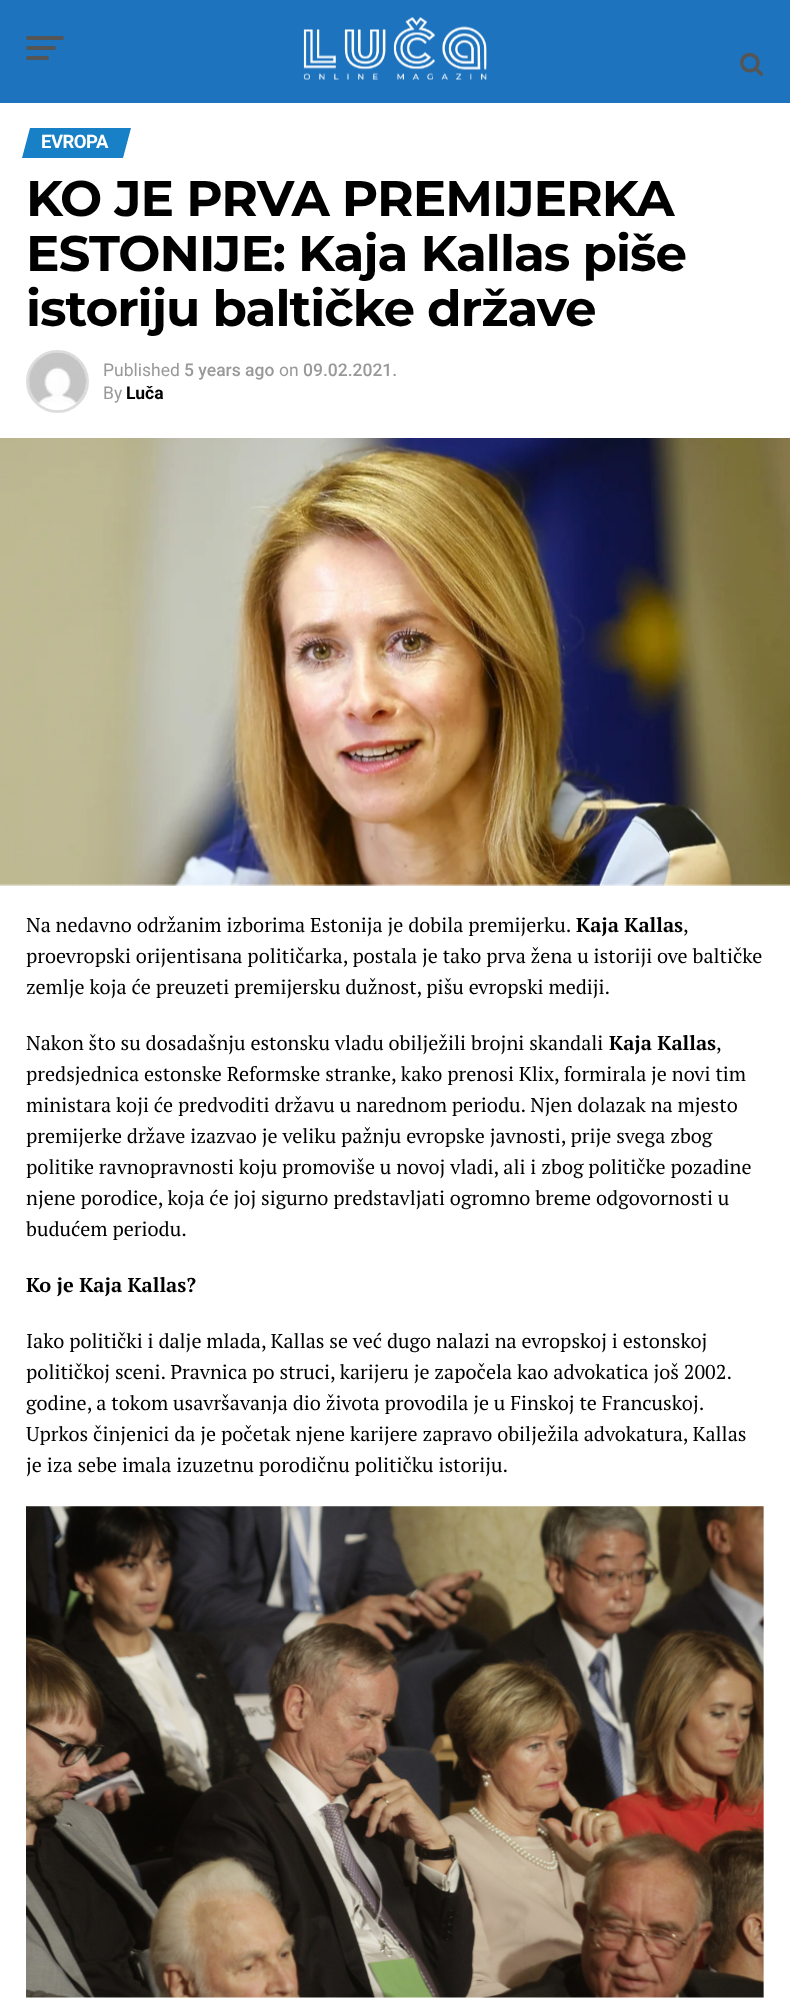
<?xml version="1.0" encoding="UTF-8"?>
<svg xmlns="http://www.w3.org/2000/svg" xmlns:xlink="http://www.w3.org/1999/xlink" width="790" height="2012">
  <rect width="100%" height="100%" fill="#ffffff" />
  <rect width="790" height="103" fill="#1e73be" />
  <rect x="26" y="36" width="38" height="4" rx="2" fill="#555555" />
  <rect x="26" y="46" width="30" height="4" rx="2" fill="#555555" />
  <rect x="26" y="56" width="23" height="4" rx="2" fill="#555555" />
  <image x="303" y="17" width="184" height="64" xlink:href="image1.png" />
  <image x="740" y="52" width="24" height="24" xlink:href="image2.png" />
  <path d="M 30 128 h 101 l -8 30 h -101 z" fill="#1780c7" />
  <circle cx="57.5" cy="381.5" r="30" fill="none" stroke="#dddddd" stroke-width="3" />
  <image x="28" y="352" width="59" height="58" xlink:href="image3.png" />
  <image x="0" y="438" width="790" height="448" xlink:href="image4.png" />
  <image x="26" y="1506" width="738" height="492" xlink:href="image5.png" />
  <text x="41" y="148" style="font-family: Roboto; font-size: 18.5px; font-weight: bold; letter-spacing: -0.5px; fill: #ffffff">EVROPA</text>
  <text x="26" y="216" style="font-family: Montserrat; font-size: 50px; font-weight: bold; letter-spacing: -1px; fill: #000000">KO JE PRVA PREMIJERKA</text>
  <text x="26" y="271" style="font-family: Montserrat; font-size: 50px; font-weight: bold; letter-spacing: -1px; fill: #000000">ESTONIJE: Kaja Kallas piše</text>
  <text x="26" y="326" style="font-family: Montserrat; font-size: 50px; font-weight: bold; letter-spacing: -1px; fill: #000000">istoriju baltičke države</text>
  <text x="103" y="376" style="font-family: Roboto; font-size: 17.5px; fill: #999999">Published</text>
  <text x="184" y="376" style="font-family: Roboto; font-size: 17.5px; font-weight: 500; fill: #999999">5 years ago</text>
  <text x="279" y="376" style="font-family: Roboto; font-size: 17.5px; fill: #999999">on</text>
  <text x="303" y="376" style="font-family: Roboto; font-size: 17.5px; font-weight: 500; fill: #999999">09.02.2021.</text>
  <text x="103" y="399" style="font-family: Roboto; font-size: 17.5px; fill: #999999">By</text>
  <text x="126" y="399" style="font-family: Roboto; font-size: 17.5px; font-weight: bold; fill: #000000">Luča</text>
  <text x="26" y="932" style="font-family: PT Serif; font-size: 20px; fill: #000000">Na nedavno održanim izborima Estonija je dobila premijerku.</text>
  <text x="576" y="932" style="font-family: PT Serif; font-size: 20px; font-weight: bold; fill: #000000">Kaja Kallas</text>
  <text x="683" y="932" style="font-family: PT Serif; font-size: 20px; fill: #000000">,</text>
  <text x="26" y="963" style="font-family: PT Serif; font-size: 20px; fill: #000000">proevropski orijentisana političarka, postala je tako prva žena u istoriji ove baltičke</text>
  <text x="26" y="994" style="font-family: PT Serif; font-size: 20px; fill: #000000">zemlje koja će preuzeti premijersku dužnost, pišu evropski mediji.</text>
  <text x="26" y="1050" style="font-family: PT Serif; font-size: 20px; fill: #000000">Nakon što su dosadašnju estonsku vladu obilježili brojni skandali</text>
  <text x="609" y="1050" style="font-family: PT Serif; font-size: 20px; font-weight: bold; fill: #000000">Kaja Kallas</text>
  <text x="716" y="1050" style="font-family: PT Serif; font-size: 20px; fill: #000000">,</text>
  <text x="26" y="1081" style="font-family: PT Serif; font-size: 20px; fill: #000000">predsjednica estonske Reformske stranke, kako prenosi Klix, formirala je novi tim</text>
  <text x="26" y="1112" style="font-family: PT Serif; font-size: 20px; fill: #000000">ministara koji će predvoditi državu u narednom periodu. Njen dolazak na mjesto</text>
  <text x="26" y="1143" style="font-family: PT Serif; font-size: 20px; fill: #000000">premijerke države izazvao je veliku pažnju evropske javnosti, prije svega zbog</text>
  <text x="26" y="1174" style="font-family: PT Serif; font-size: 20px; fill: #000000">politike ravnopravnosti koju promoviše u novoj vladi, ali i zbog političke pozadine</text>
  <text x="26" y="1205" style="font-family: PT Serif; font-size: 20px; fill: #000000">njene porodice, koja će joj sigurno predstavljati ogromno breme odgovornosti u</text>
  <text x="26" y="1236" style="font-family: PT Serif; font-size: 20px; fill: #000000">budućem periodu.</text>
  <text x="26" y="1292" style="font-family: PT Serif; font-size: 20px; font-weight: bold; fill: #000000">Ko je Kaja Kallas?</text>
  <text x="26" y="1348" style="font-family: PT Serif; font-size: 20px; fill: #000000">Iako politički i dalje mlada, Kallas se već dugo nalazi na evropskoj i estonskoj</text>
  <text x="26" y="1379" style="font-family: PT Serif; font-size: 20px; fill: #000000">političkoj sceni. Pravnica po struci, karijeru je započela kao advokatica još 2002.</text>
  <text x="26" y="1410" style="font-family: PT Serif; font-size: 20px; fill: #000000">godine, a tokom usavršavanja dio života provodila je u Finskoj te Francuskoj.</text>
  <text x="26" y="1441" style="font-family: PT Serif; font-size: 20px; fill: #000000">Uprkos činjenici da je početak njene karijere zapravo obilježila advokatura, Kallas</text>
  <text x="26" y="1472" style="font-family: PT Serif; font-size: 20px; fill: #000000">je iza sebe imala izuzetnu porodičnu političku istoriju.</text>
</svg>
